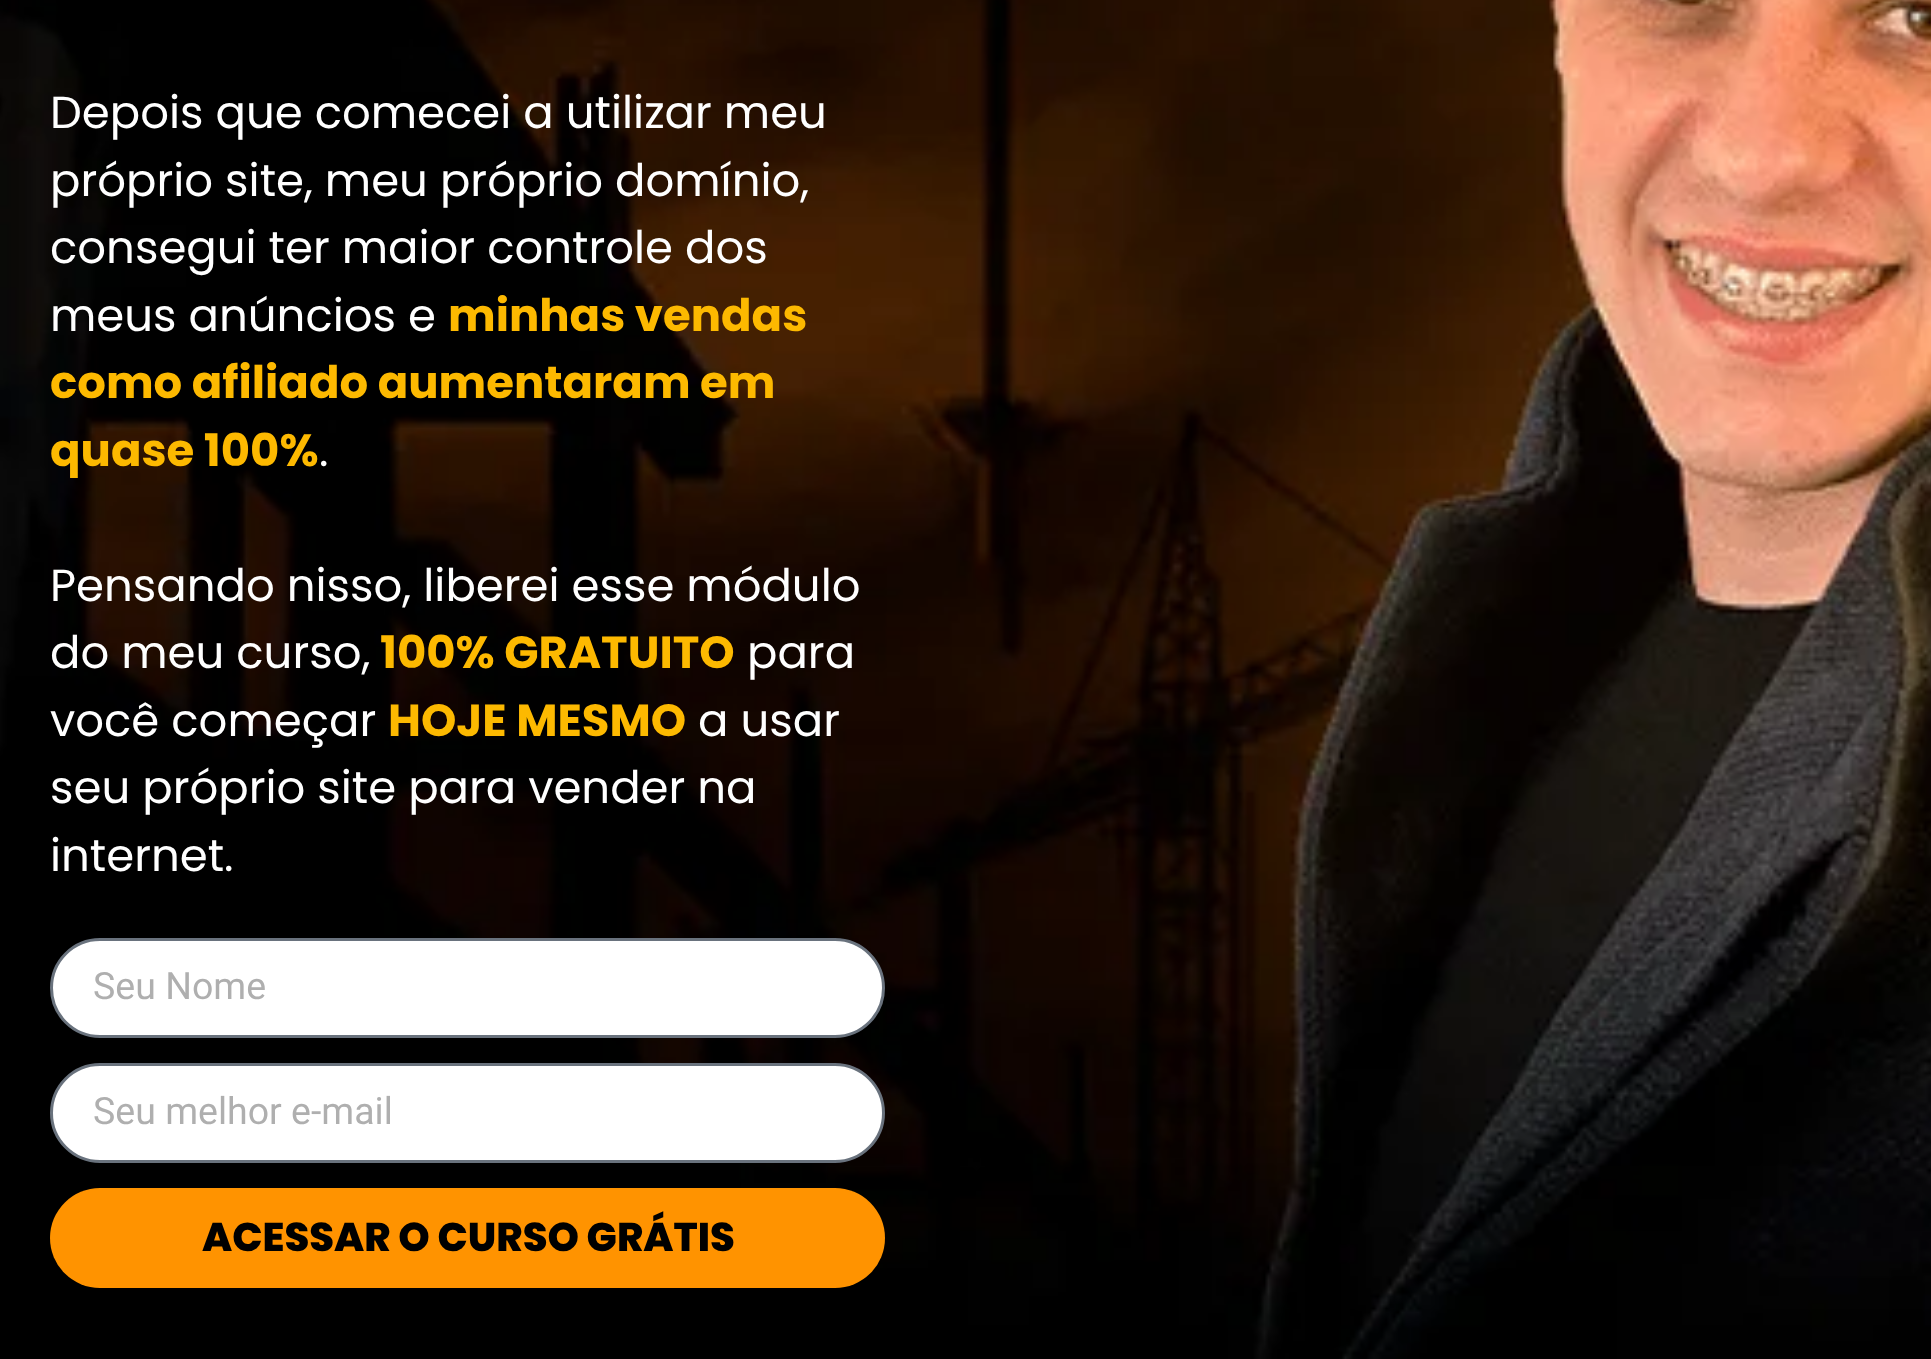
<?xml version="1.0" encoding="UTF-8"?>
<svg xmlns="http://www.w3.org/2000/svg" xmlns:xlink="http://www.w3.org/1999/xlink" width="1931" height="1359">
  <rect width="100%" height="100%" fill="#ffffff" />
  <image x="0" y="0" width="1931" height="1359" xlink:href="image1.png" />
  <rect x="51.5" y="939.5" width="832" height="97" rx="48.5" fill="#ffffff" stroke="#69727d" stroke-width="3" />
  <rect x="51.5" y="1064.5" width="832" height="97" rx="48.5" fill="#ffffff" stroke="#69727d" stroke-width="3" />
  <rect x="50" y="1188" width="835" height="100" rx="50" fill="#ff9300" />
  <text x="50" y="128" style="font-family: Poppins; font-size: 45px; fill: #ffffff">Depois que comecei a utilizar meu</text>
  <text x="50" y="196" style="font-family: Poppins; font-size: 45px; fill: #ffffff">próprio site, meu próprio domínio,</text>
  <text x="50" y="263" style="font-family: Poppins; font-size: 45px; fill: #ffffff">consegui ter maior controle dos</text>
  <text x="50" y="331" style="font-family: Poppins; font-size: 45px; fill: #ffffff">meus anúncios e</text>
  <text x="448" y="331" style="font-family: Poppins; font-size: 45px; font-weight: bold; fill: #fdb900">minhas vendas</text>
  <text x="50" y="398" style="font-family: Poppins; font-size: 45px; font-weight: bold; fill: #fdb900">como afiliado aumentaram em</text>
  <text x="50" y="466" style="font-family: Poppins; font-size: 45px; font-weight: bold; fill: #fdb900">quase 100%</text>
  <text x="319" y="466" style="font-family: Poppins; font-size: 45px; fill: #ffffff">.</text>
  <text x="50" y="601" style="font-family: Poppins; font-size: 45px; fill: #ffffff">Pensando nisso, liberei esse módulo</text>
  <text x="50" y="668" style="font-family: Poppins; font-size: 45px; fill: #ffffff">do meu curso,</text>
  <text x="380" y="668" style="font-family: Poppins; font-size: 45px; font-weight: bold; fill: #fdb900">100% GRATUITO</text>
  <text x="747" y="668" style="font-family: Poppins; font-size: 45px; fill: #ffffff">para</text>
  <text x="50" y="736" style="font-family: Poppins; font-size: 45px; fill: #ffffff">você começar</text>
  <text x="388" y="736" style="font-family: Poppins; font-size: 45px; font-weight: bold; fill: #fdb900">HOJE MESMO</text>
  <text x="698" y="736" style="font-family: Poppins; font-size: 45px; fill: #ffffff">a usar</text>
  <text x="50" y="803" style="font-family: Poppins; font-size: 45px; fill: #ffffff">seu próprio site para vender na</text>
  <text x="50" y="871" style="font-family: Poppins; font-size: 45px; fill: #ffffff">internet.</text>
  <text x="93" y="999" style="font-family: Roboto; font-size: 37.5px; fill: #afafaf">Seu Nome</text>
  <text x="93" y="1124" style="font-family: Roboto; font-size: 37.5px; fill: #afafaf">Seu melhor e-mail</text>
  <text x="202" y="1251" style="font-family: Poppins; font-size: 40px; font-weight: 800; fill: #000000">ACESSAR O CURSO GRÁTIS</text>
</svg>
